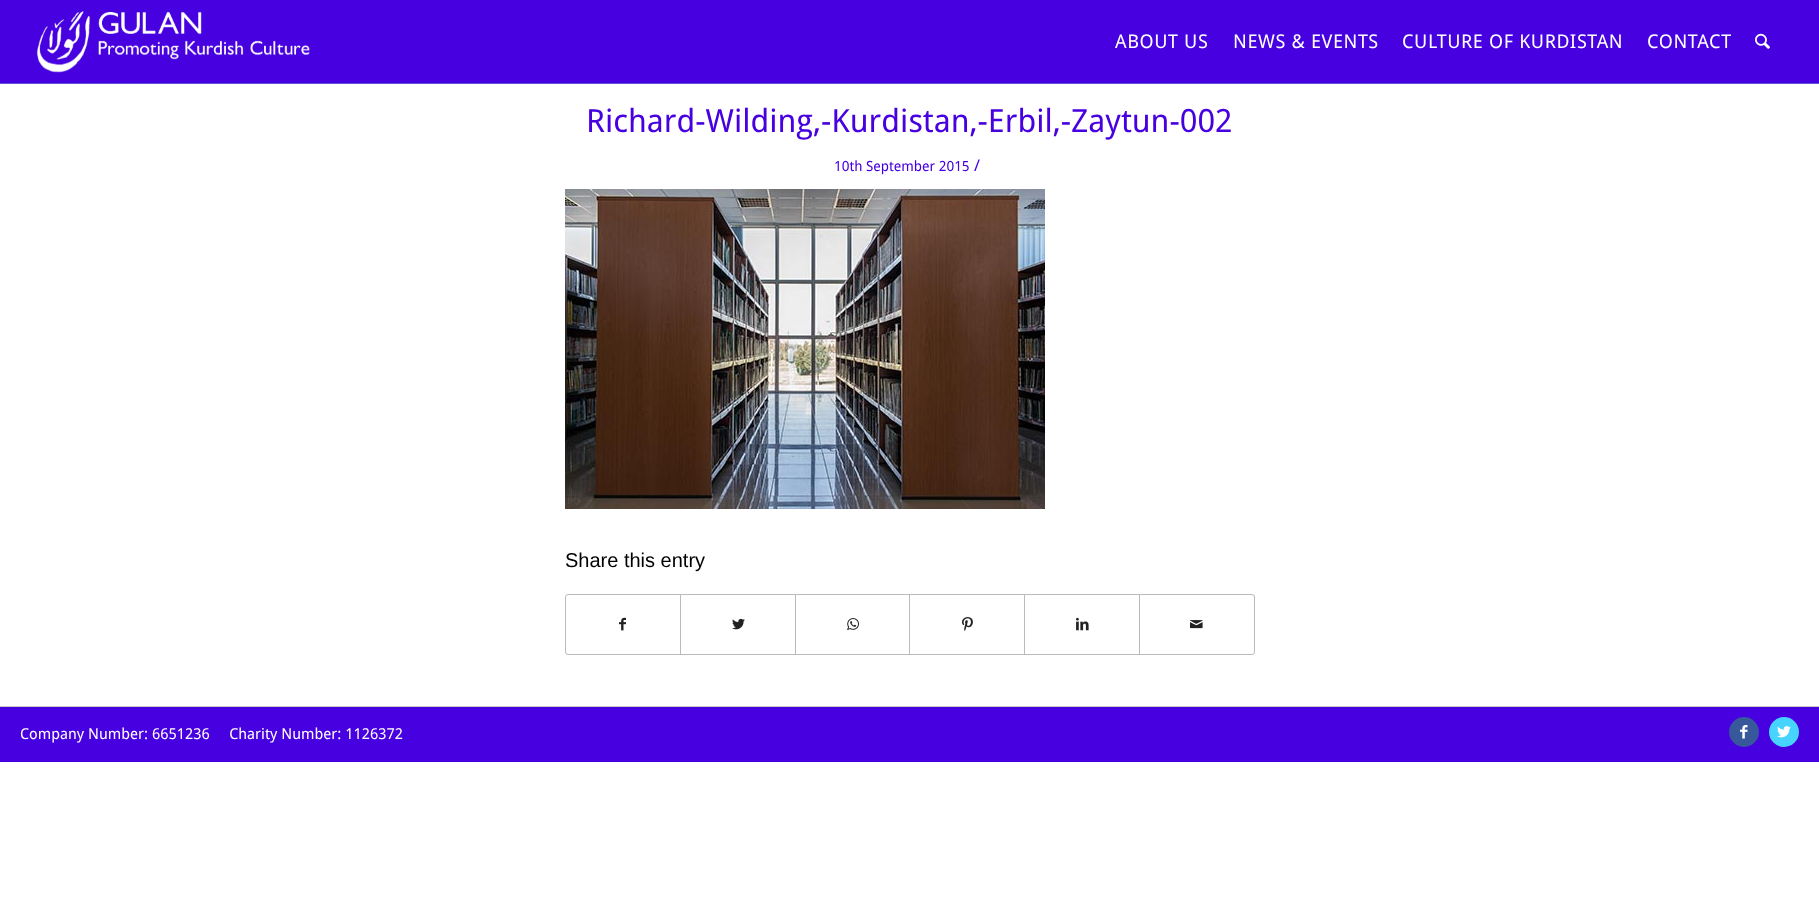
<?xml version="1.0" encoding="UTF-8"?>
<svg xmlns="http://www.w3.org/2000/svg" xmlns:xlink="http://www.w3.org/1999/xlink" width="1819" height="916">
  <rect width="100%" height="100%" fill="#ffffff" />
  <rect width="1819" height="762" fill="#4700e0" />
  <rect y="83" width="1819" height="1" fill="#6353d9" />
  <image x="36" y="11" width="274" height="62" xlink:href="image1.png" />
  <image x="1755" y="33" width="15" height="16" xlink:href="image2.png" />
  <rect y="84" width="1819" height="622" fill="#ffffff" />
  <image x="565" y="189" width="480" height="320" xlink:href="image3.png" />
  <rect x="565.5" y="594.5" width="689" height="60" rx="2.5" fill="none" stroke="#bbbbbb" />
  <image x="619" y="617" width="7" height="14" xlink:href="image4.png" />
  <rect x="680" y="595" width="1" height="59" fill="#bbbbbb" />
  <image x="732" y="618" width="13" height="12" xlink:href="image5.png" />
  <rect x="795" y="595" width="1" height="59" fill="#bbbbbb" />
  <image x="847" y="618" width="12" height="13" xlink:href="image6.png" />
  <rect x="909" y="595" width="1" height="59" fill="#bbbbbb" />
  <image x="962" y="617" width="11" height="14" xlink:href="image7.png" />
  <rect x="1024" y="595" width="1" height="59" fill="#bbbbbb" />
  <image x="1076" y="617" width="13" height="14" xlink:href="image8.png" />
  <rect x="1139" y="595" width="1" height="59" fill="#bbbbbb" />
  <image x="1190" y="620" width="13" height="9" xlink:href="image9.png" />
  <rect y="706" width="1819" height="1" fill="#c9c8c7" />
  <circle cx="1744" cy="732" r="15" fill="#37589b" />
  <image x="1740" y="725" width="8" height="14" xlink:href="image10.png" />
  <circle cx="1784" cy="732" r="15" fill="#46d4fe" />
  <image x="1777" y="726" width="14" height="12" xlink:href="image11.png" />
  <text x="1115" y="48" style="font-family: Droid Sans; font-size: 19px; letter-spacing: 0.6px; fill: #ffffff">ABOUT US</text>
  <text x="1233" y="48" style="font-family: Droid Sans; font-size: 19px; letter-spacing: 0.6px; fill: #ffffff">NEWS &amp; EVENTS</text>
  <text x="1402" y="48" style="font-family: Droid Sans; font-size: 19px; letter-spacing: 0.6px; fill: #ffffff">CULTURE OF KURDISTAN</text>
  <text x="1647" y="48" style="font-family: Droid Sans; font-size: 19px; letter-spacing: 0.6px; fill: #ffffff">CONTACT</text>
  <text x="586" y="132" style="font-family: Droid Sans; font-size: 32px; fill: #4700e0">Richard-Wilding,-Kurdistan,-Erbil,-Zaytun-002</text>
  <text x="834" y="171" style="font-family: Droid Sans; font-size: 14px; fill: #4700e0">10th September 2015</text>
  <text x="974" y="171" style="font-family: Droid Sans; font-size: 16px; fill: #4700e0">/</text>
  <text x="565" y="567" style="font-family: Liberation Sans; font-size: 20px; fill: #000000">Share this entry</text>
  <text x="20" y="739" style="font-family: Droid Sans; font-size: 15px; fill: #ffffff" xml:space="preserve">Company Number: 6651236     Charity Number: 1126372</text>
</svg>
